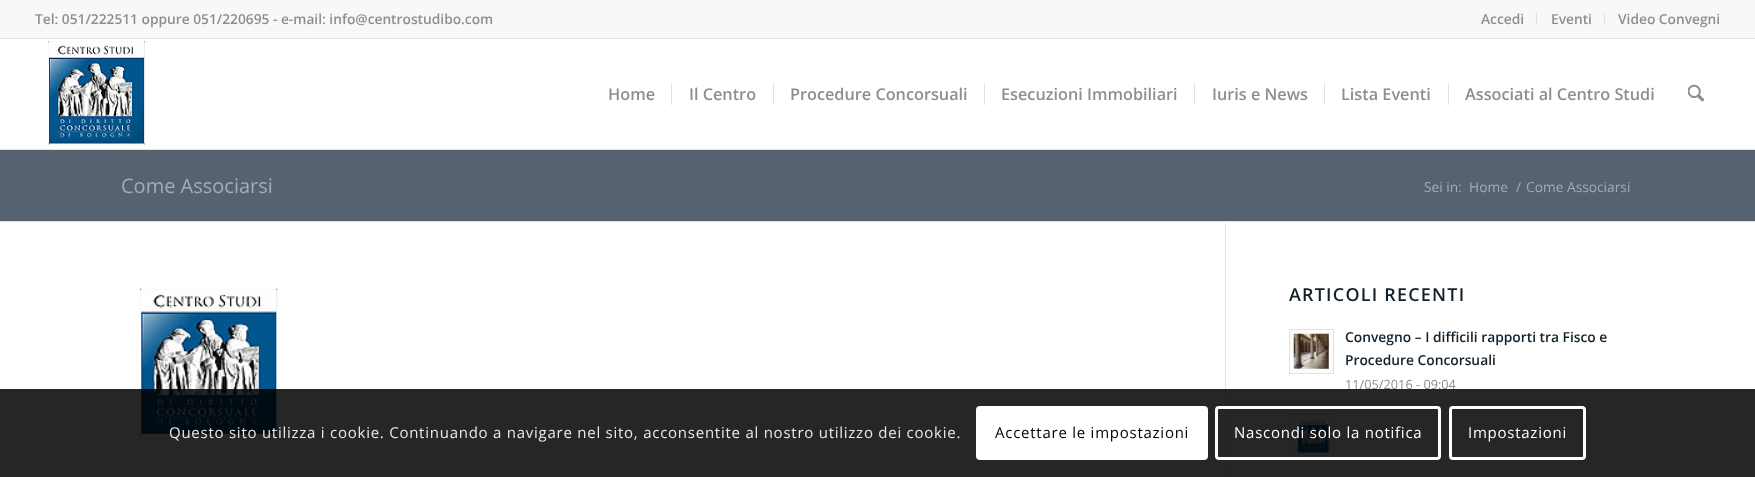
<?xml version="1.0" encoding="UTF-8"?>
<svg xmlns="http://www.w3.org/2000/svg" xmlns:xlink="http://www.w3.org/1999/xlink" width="1755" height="477">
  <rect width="100%" height="100%" fill="#ffffff" />
  <rect width="1755" height="38" fill="#f8f8f8" />
  <rect y="38" width="1755" height="1" fill="#e1e1e1" />
  <rect x="1536" y="13" width="1" height="12" fill="#e1e1e1" />
  <rect x="1604" y="13" width="1" height="12" fill="#e1e1e1" />
  <rect y="149" width="1755" height="1" fill="#e1e1e1" />
  <image x="48" y="41" width="97" height="104" xlink:href="image1.png" />
  <rect x="671" y="83" width="1" height="22" fill="#e1e1e1" />
  <rect x="773" y="83" width="1" height="22" fill="#e1e1e1" />
  <rect x="984" y="83" width="1" height="22" fill="#e1e1e1" />
  <rect x="1194" y="83" width="1" height="22" fill="#e1e1e1" />
  <rect x="1324" y="83" width="1" height="22" fill="#e1e1e1" />
  <rect x="1448" y="83" width="1" height="22" fill="#e1e1e1" />
  <image x="1688" y="84" width="16" height="18" xlink:href="image2.png" />
  <rect y="150" width="1755" height="71" fill="#576270" />
  <rect y="221" width="1755" height="1" fill="#e1e1e1" />
  <rect x="1225" y="223" width="1" height="254" fill="#e1e1e1" />
  <image x="139" y="288" width="139" height="148" xlink:href="image3.png" />
  <rect x="1289.5" y="329.5" width="44" height="44" fill="#fcfcfc" stroke="#e1e1e1" />
  <image x="1293" y="333" width="36" height="36" xlink:href="image4.png" />
  <rect x="1290" y="415" width="43" height="42" fill="#fcfcfc" />
  <rect x="1289.5" y="414.5" width="44" height="44" fill="none" stroke="#e1e1e1" />
  <image x="1297" y="420" width="32" height="33" xlink:href="image5.png" />
  <text x="35" y="24" style="font-family: Open Sans; font-size: 13.75px; font-weight: 600; fill: #889095">Tel: 051/222511 oppure 051/220695 - e-mail: info@centrostudibo.com</text>
  <text x="1481" y="24" style="font-family: Open Sans; font-size: 13.75px; font-weight: 600; fill: #889095">Accedi</text>
  <text x="1551" y="24" style="font-family: Open Sans; font-size: 13.75px; font-weight: 600; fill: #889095">Eventi</text>
  <text x="1618" y="24" style="font-family: Open Sans; font-size: 13.75px; font-weight: 600; fill: #889095">Video Convegni</text>
  <text x="608" y="100" style="font-family: Open Sans; font-size: 16.25px; font-weight: 600; fill: #889095">Home</text>
  <text x="689" y="100" style="font-family: Open Sans; font-size: 16.25px; font-weight: 600; fill: #889095">Il Centro</text>
  <text x="790" y="100" style="font-family: Open Sans; font-size: 16.25px; font-weight: 600; fill: #889095">Procedure Concorsuali</text>
  <text x="1001" y="100" style="font-family: Open Sans; font-size: 16.25px; font-weight: 600; fill: #889095">Esecuzioni Immobiliari</text>
  <text x="1212" y="100" style="font-family: Open Sans; font-size: 16.25px; font-weight: 600; fill: #889095">Iuris e News</text>
  <text x="1341" y="100" style="font-family: Open Sans; font-size: 16.25px; font-weight: 600; fill: #889095">Lista Eventi</text>
  <text x="1465" y="100" style="font-family: Open Sans; font-size: 16.25px; font-weight: 600; fill: #889095">Associati al Centro Studi</text>
  <text x="121" y="193" style="font-family: Open Sans; font-size: 20px; fill: #a7abb1">Come Associarsi</text>
  <text x="1424" y="192" style="font-family: Open Sans; font-size: 13.75px; fill: #a7abb1">Sei in:</text>
  <text x="1469" y="192" style="font-family: Open Sans; font-size: 13.75px; fill: #a7abb1">Home</text>
  <text x="1516" y="192" style="font-family: Open Sans; font-size: 13.75px; fill: #a7abb1">/</text>
  <text x="1526" y="192" style="font-family: Open Sans; font-size: 13.75px; fill: #a7abb1">Come Associarsi</text>
  <text x="1289" y="301" style="font-family: Open Sans; font-size: 17.9px; font-weight: 600; letter-spacing: 1.25px; fill: #11202a">ARTICOLI RECENTI</text>
  <text x="1345" y="342" style="font-family: Open Sans; font-size: 13.8px; font-weight: 600; fill: #11202a">Convegno – I difficili rapporti tra Fisco e</text>
  <text x="1345" y="365" style="font-family: Open Sans; font-size: 13.8px; font-weight: 600; fill: #11202a">Procedure Concorsuali</text>
  <text x="1345" y="389" style="font-family: Open Sans; font-size: 12.75px; fill: #889095">11/05/2016 - 09:04</text>
  <rect y="389" width="1755" height="88" fill="#000000" fill-opacity="0.85" />
  <text x="169" y="438" style="font-family: Open Sans; font-size: 15px; letter-spacing: 0.75px; fill: #e9e9e9">Questo sito utilizza i cookie. Continuando a navigare nel sito, acconsentite al nostro utilizzo dei cookie.</text>
  <rect x="976" y="406" width="232" height="54" rx="4" fill="#ffffff" />
  <text x="995" y="438" style="font-family: Open Sans; font-size: 15px; letter-spacing: 0.75px; fill: #000000">Accettare le impostazioni</text>
  <rect x="1216.5" y="407.5" width="223" height="51" rx="2.5" fill="none" stroke="#ffffff" stroke-width="3" />
  <text x="1234" y="438" style="font-family: Open Sans; font-size: 15px; letter-spacing: 0.75px; fill: #ffffff">Nascondi solo la notifica</text>
  <rect x="1450.5" y="407.5" width="134" height="51" rx="2.5" fill="none" stroke="#ffffff" stroke-width="3" />
  <text x="1468" y="438" style="font-family: Open Sans; font-size: 15px; letter-spacing: 0.75px; fill: #ffffff">Impostazioni</text>
</svg>
